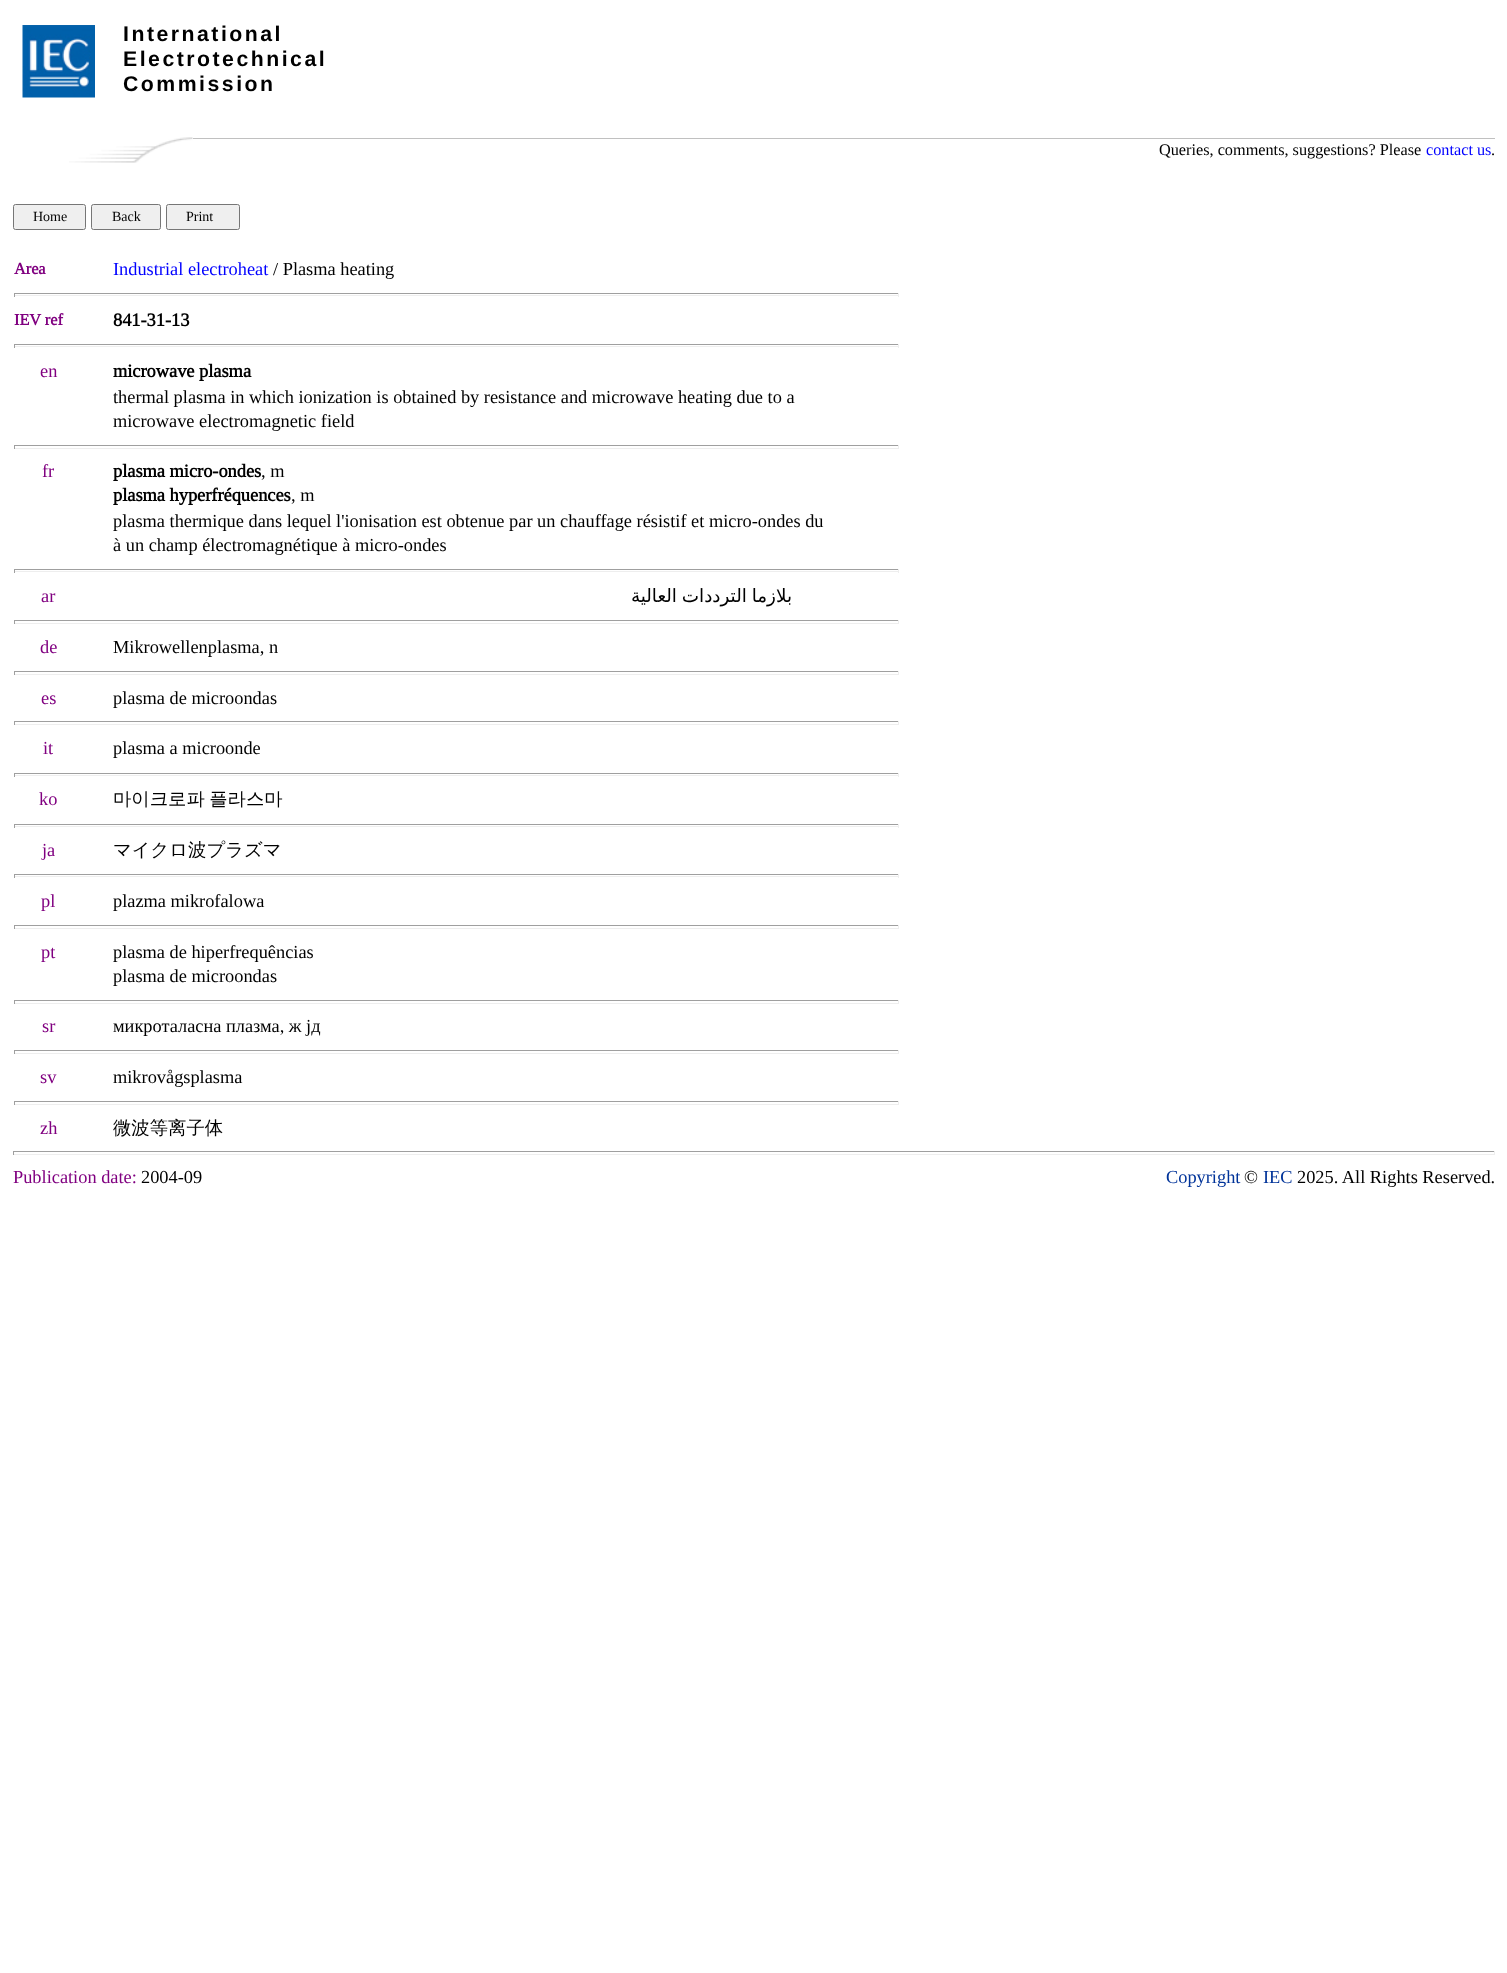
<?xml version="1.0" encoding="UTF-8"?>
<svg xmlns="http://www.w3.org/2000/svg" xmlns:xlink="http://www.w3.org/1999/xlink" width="1507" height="1973">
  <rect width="100%" height="100%" fill="#ffffff" />
  <image x="22" y="25" width="73" height="73" xlink:href="image1.png" />
  <image x="69" y="137" width="124" height="26" xlink:href="image2.png" />
  <rect x="193" y="138" width="1302" height="1" fill="#c0c0c0" />
  <rect x="13.5" y="204.5" width="72" height="25" rx="2" fill="#efefef" stroke="#767676" />
  <rect x="91.5" y="204.5" width="69" height="25" rx="2" fill="#efefef" stroke="#767676" />
  <rect x="166.5" y="204.5" width="73" height="25" rx="2" fill="#efefef" stroke="#767676" />
  <rect x="14" y="293" width="885" height="1" fill="#9f9f9f" />
  <rect x="898" y="293" width="1" height="4" fill="#eeeeee" />
  <rect x="14" y="295" width="885" height="1" fill="#eeeeee" />
  <rect x="14" y="293" width="1" height="4" fill="#9f9f9f" />
  <rect x="14" y="344" width="885" height="1" fill="#9f9f9f" />
  <rect x="898" y="344" width="1" height="4" fill="#eeeeee" />
  <rect x="14" y="346" width="885" height="1" fill="#eeeeee" />
  <rect x="14" y="344" width="1" height="4" fill="#9f9f9f" />
  <rect x="14" y="445" width="885" height="1" fill="#9f9f9f" />
  <rect x="898" y="445" width="1" height="4" fill="#eeeeee" />
  <rect x="14" y="448" width="885" height="1" fill="#eeeeee" />
  <rect x="14" y="445" width="1" height="4" fill="#9f9f9f" />
  <rect x="14" y="569" width="885" height="1" fill="#9f9f9f" />
  <rect x="898" y="569" width="1" height="4" fill="#eeeeee" />
  <rect x="14" y="571" width="885" height="1" fill="#eeeeee" />
  <rect x="14" y="569" width="1" height="4" fill="#9f9f9f" />
  <rect x="14" y="620" width="885" height="1" fill="#9f9f9f" />
  <rect x="898" y="620" width="1" height="4" fill="#eeeeee" />
  <rect x="14" y="623" width="885" height="1" fill="#eeeeee" />
  <rect x="14" y="620" width="1" height="4" fill="#9f9f9f" />
  <rect x="14" y="671" width="885" height="1" fill="#9f9f9f" />
  <rect x="898" y="671" width="1" height="4" fill="#eeeeee" />
  <rect x="14" y="674" width="885" height="1" fill="#eeeeee" />
  <rect x="14" y="671" width="1" height="4" fill="#9f9f9f" />
  <rect x="14" y="721" width="885" height="1" fill="#9f9f9f" />
  <rect x="898" y="721" width="1" height="4" fill="#eeeeee" />
  <rect x="14" y="724" width="885" height="1" fill="#eeeeee" />
  <rect x="14" y="721" width="1" height="4" fill="#9f9f9f" />
  <rect x="14" y="773" width="885" height="1" fill="#9f9f9f" />
  <rect x="898" y="773" width="1" height="4" fill="#eeeeee" />
  <rect x="14" y="775" width="885" height="1" fill="#eeeeee" />
  <rect x="14" y="773" width="1" height="4" fill="#9f9f9f" />
  <rect x="14" y="824" width="885" height="1" fill="#9f9f9f" />
  <rect x="898" y="824" width="1" height="4" fill="#eeeeee" />
  <rect x="14" y="826" width="885" height="1" fill="#eeeeee" />
  <rect x="14" y="824" width="1" height="4" fill="#9f9f9f" />
  <rect x="14" y="874" width="885" height="1" fill="#9f9f9f" />
  <rect x="898" y="874" width="1" height="4" fill="#eeeeee" />
  <rect x="14" y="876" width="885" height="1" fill="#eeeeee" />
  <rect x="14" y="874" width="1" height="4" fill="#9f9f9f" />
  <rect x="14" y="925" width="885" height="1" fill="#9f9f9f" />
  <rect x="898" y="925" width="1" height="4" fill="#eeeeee" />
  <rect x="14" y="928" width="885" height="1" fill="#eeeeee" />
  <rect x="14" y="925" width="1" height="4" fill="#9f9f9f" />
  <rect x="14" y="1000" width="885" height="1" fill="#9f9f9f" />
  <rect x="898" y="1000" width="1" height="4" fill="#eeeeee" />
  <rect x="14" y="1003" width="885" height="1" fill="#eeeeee" />
  <rect x="14" y="1000" width="1" height="4" fill="#9f9f9f" />
  <rect x="14" y="1050" width="885" height="1" fill="#9f9f9f" />
  <rect x="898" y="1050" width="1" height="4" fill="#eeeeee" />
  <rect x="14" y="1053" width="885" height="1" fill="#eeeeee" />
  <rect x="14" y="1050" width="1" height="4" fill="#9f9f9f" />
  <rect x="14" y="1101" width="885" height="1" fill="#9f9f9f" />
  <rect x="898" y="1101" width="1" height="4" fill="#eeeeee" />
  <rect x="14" y="1104" width="885" height="1" fill="#eeeeee" />
  <rect x="14" y="1101" width="1" height="4" fill="#9f9f9f" />
  <rect x="13" y="1151" width="1482" height="1" fill="#9f9f9f" />
  <rect x="1494" y="1151" width="1" height="4" fill="#eeeeee" />
  <rect x="13" y="1154" width="1482" height="1" fill="#eeeeee" />
  <rect x="13" y="1151" width="1" height="4" fill="#9f9f9f" />
  <text x="123" y="41" style="font-family: Liberation Sans; font-size: 21.25px; font-weight: bold; letter-spacing: 2.5px; fill: #000000">International</text>
  <text x="123" y="66" style="font-family: Liberation Sans; font-size: 21.25px; font-weight: bold; letter-spacing: 2.5px; fill: #000000">Electrotechnical</text>
  <text x="123" y="91" style="font-family: Liberation Sans; font-size: 21.25px; font-weight: bold; letter-spacing: 2.5px; fill: #000000">Commission</text>
  <text x="1159" y="155" style="font-family: Liberation Serif; font-size: 16.25px; fill: #000000">Queries, comments, suggestions? Please</text>
  <text x="1426" y="155" style="font-family: Liberation Serif; font-size: 16.25px; fill: #0000ff">contact us</text>
  <text x="1491" y="155" style="font-family: Liberation Serif; font-size: 16.25px; fill: #000000">.</text>
  <text x="33" y="221" style="font-family: Liberation Serif; font-size: 14px; fill: #000000">Home</text>
  <text x="112" y="221" style="font-family: Liberation Serif; font-size: 14px; fill: #000000">Back</text>
  <text x="186" y="221" style="font-family: Liberation Serif; font-size: 14px; fill: #000000">Print</text>
  <text x="14" y="274" style="font-family: Liberation Serif; font-size: 16.25px; font-weight: bold; fill: #800080">Area</text>
  <text x="113" y="275" style="font-family: Liberation Serif; font-size: 18.35px; fill: #0000ff">Industrial electroheat</text>
  <text x="273" y="275" style="font-family: Liberation Serif; font-size: 18.35px; fill: #000000">/ Plasma heating</text>
  <text x="14" y="325" style="font-family: Liberation Serif; font-size: 16.25px; font-weight: bold; fill: #800080">IEV ref</text>
  <text x="113" y="326" style="font-family: Liberation Serif; font-size: 18.35px; font-weight: bold; fill: #000000">841-31-13</text>
  <text x="40" y="377" style="font-family: Liberation Serif; font-size: 18.35px; fill: #800080">en</text>
  <text x="113" y="377" style="font-family: Liberation Serif; font-size: 18.35px; font-weight: bold; fill: #000000">microwave plasma</text>
  <text x="113" y="403" style="font-family: Liberation Serif; font-size: 18.35px; fill: #000000">thermal plasma in which ionization is obtained by resistance and microwave heating due to a</text>
  <text x="113" y="427" style="font-family: Liberation Serif; font-size: 18.35px; fill: #000000">microwave electromagnetic field</text>
  <text x="42" y="477" style="font-family: Liberation Serif; font-size: 18.35px; fill: #800080">fr</text>
  <text x="113" y="477" style="font-family: Liberation Serif; font-size: 18.35px; font-weight: bold; fill: #000000">plasma micro-ondes</text>
  <text x="261" y="477" style="font-family: Liberation Serif; font-size: 18.35px; fill: #000000">, m</text>
  <text x="113" y="501" style="font-family: Liberation Serif; font-size: 18.35px; font-weight: bold; fill: #000000">plasma hyperfréquences</text>
  <text x="291" y="501" style="font-family: Liberation Serif; font-size: 18.35px; fill: #000000">, m</text>
  <text x="113" y="527" style="font-family: Liberation Serif; font-size: 18.35px; fill: #000000">plasma thermique dans lequel l'ionisation est obtenue par un chauffage résistif et micro-ondes du</text>
  <text x="113" y="551" style="font-family: Liberation Serif; font-size: 18.35px; fill: #000000">à un champ électromagnétique à micro-ondes</text>
  <text x="41" y="602" style="font-family: Liberation Serif; font-size: 18.35px; fill: #800080">ar</text>
  <text x="792" y="602" word-spacing="-1" style="font-family: DejaVu Sans; font-size: 18.35px; direction: rtl; fill: #000000">بلازما الترددات العالية</text>
  <text x="40" y="653" style="font-family: Liberation Serif; font-size: 18.35px; fill: #800080">de</text>
  <text x="113" y="653" style="font-family: Liberation Serif; font-size: 18.35px; fill: #000000">Mikrowellenplasma, n</text>
  <text x="41" y="704" style="font-family: Liberation Serif; font-size: 18.35px; fill: #800080">es</text>
  <text x="113" y="704" style="font-family: Liberation Serif; font-size: 18.35px; fill: #000000">plasma de microondas</text>
  <text x="43" y="754" style="font-family: Liberation Serif; font-size: 18.35px; fill: #800080">it</text>
  <text x="113" y="754" style="font-family: Liberation Serif; font-size: 18.35px; fill: #000000">plasma a microonde</text>
  <text x="39" y="805" style="font-family: Liberation Serif; font-size: 18.35px; fill: #800080">ko</text>
  <text x="113" y="805" word-spacing="-1" style="font-family: WenQuanYi Zen Hei; font-size: 18.35px; font-weight: 500; fill: #000000">마이크로파 플라스마</text>
  <text x="42" y="856" style="font-family: Liberation Serif; font-size: 18.35px; fill: #800080">ja</text>
  <text x="113" y="856" style="font-family: WenQuanYi Zen Hei; font-size: 18.35px; font-weight: 500; fill: #000000">マイクロ波プラズマ</text>
  <text x="41" y="907" style="font-family: Liberation Serif; font-size: 18.35px; fill: #800080">pl</text>
  <text x="113" y="907" style="font-family: Liberation Serif; font-size: 18.35px; fill: #000000">plazma mikrofalowa</text>
  <text x="41" y="958" style="font-family: Liberation Serif; font-size: 18.35px; fill: #800080">pt</text>
  <text x="113" y="958" style="font-family: Liberation Serif; font-size: 18.35px; fill: #000000">plasma de hiperfrequências</text>
  <text x="113" y="982" style="font-family: Liberation Serif; font-size: 18.35px; fill: #000000">plasma de microondas</text>
  <text x="42" y="1032" style="font-family: Liberation Serif; font-size: 18.35px; fill: #800080">sr</text>
  <text x="113" y="1032" style="font-family: 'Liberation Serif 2'; font-size: 18.35px; fill: #000000">микроталасна плазма, ж јд</text>
  <text x="40" y="1083" style="font-family: Liberation Serif; font-size: 18.35px; fill: #800080">sv</text>
  <text x="113" y="1083" style="font-family: Liberation Serif; font-size: 18.35px; fill: #000000">mikrovågsplasma</text>
  <text x="40" y="1134" style="font-family: Liberation Serif; font-size: 18.35px; fill: #800080">zh</text>
  <text x="113" y="1134" style="font-family: WenQuanYi Zen Hei; font-size: 18.35px; font-weight: 500; fill: #000000">微波等离子体</text>
  <text x="13" y="1183" style="font-family: Liberation Serif; font-size: 18.35px; fill: #800080">Publication date:</text>
  <text x="141" y="1183" style="font-family: Liberation Serif; font-size: 18.35px; fill: #000000">2004-09</text>
  <text x="1166" y="1183" style="font-family: Liberation Serif; font-size: 18.35px; fill: #003399">Copyright</text>
  <text x="1244" y="1183" style="font-family: Liberation Serif; font-size: 18.35px; fill: #000000">©</text>
  <text x="1263" y="1183" style="font-family: Liberation Serif; font-size: 18.35px; fill: #003399">IEC</text>
  <text x="1297" y="1183" style="font-family: Liberation Serif; font-size: 18.35px; fill: #000000">2025. All Rights Reserved.</text>
</svg>
